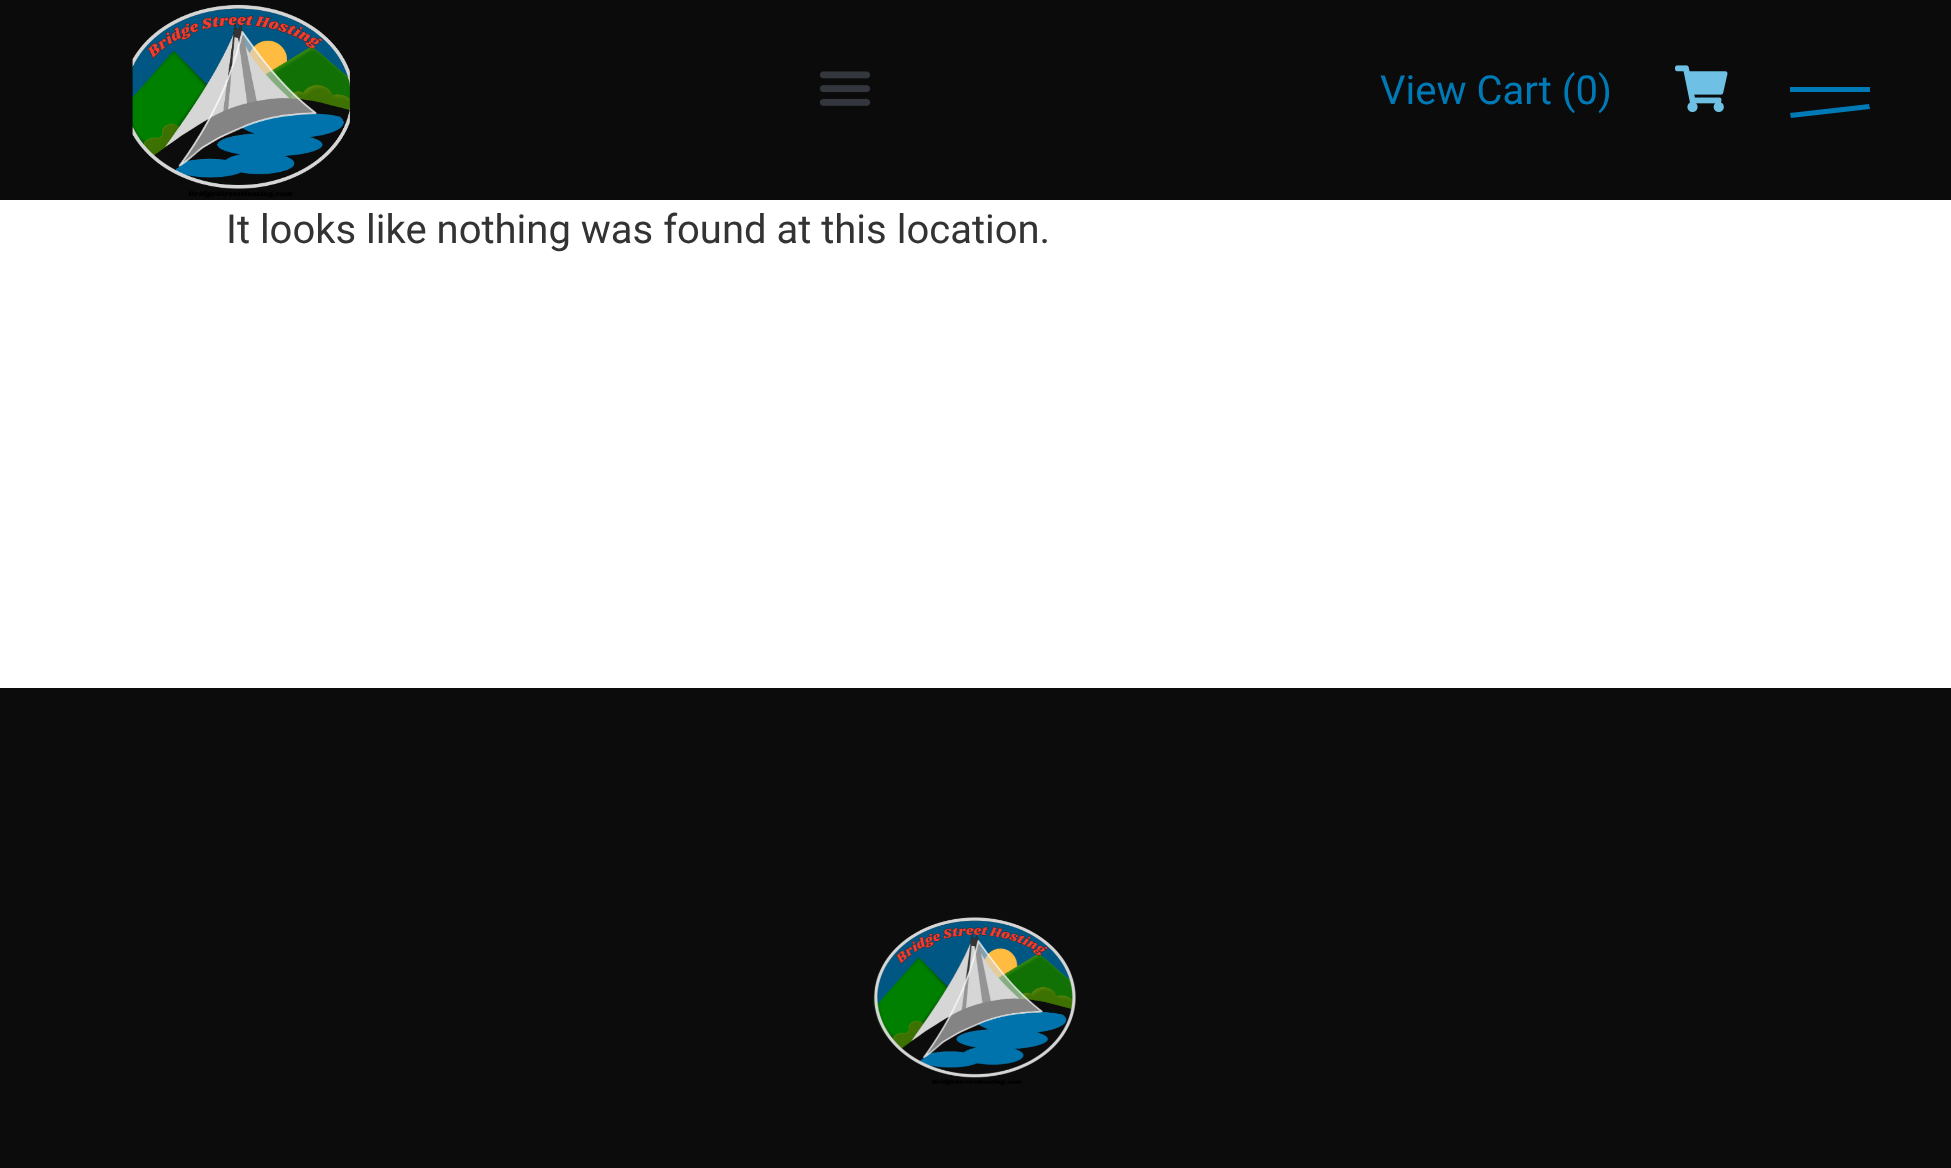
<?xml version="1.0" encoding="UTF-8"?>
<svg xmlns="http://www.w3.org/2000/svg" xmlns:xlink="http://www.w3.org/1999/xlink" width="1951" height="1168">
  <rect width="100%" height="100%" fill="#ffffff" />
  <rect width="1951" height="200" fill="#0b0b0b" />
  <image x="132" y="4" width="218" height="194" xlink:href="image1.png" />
  <image x="819" y="71" width="52" height="35" xlink:href="image2.png" />
  <image x="1675" y="65" width="53" height="48" xlink:href="image3.png" />
  <rect x="1790" y="87" width="80" height="5" fill="#007ab7" />
  <path d="M 1790 113 l 79 -9 l 1 5 l -79 9 z" fill="#007ab7" />
  <rect y="688" width="1951" height="480" fill="#0c0c0c" />
  <image x="872" y="917" width="204" height="168" xlink:href="image4.png" />
  <text x="1380" y="104" style="font-family: Roboto; font-size: 40px; fill: #007ab7">View Cart (0)</text>
  <text x="226" y="243" style="font-family: Roboto; font-size: 40px; fill: #333333">It looks like nothing was found at this location.</text>
</svg>
